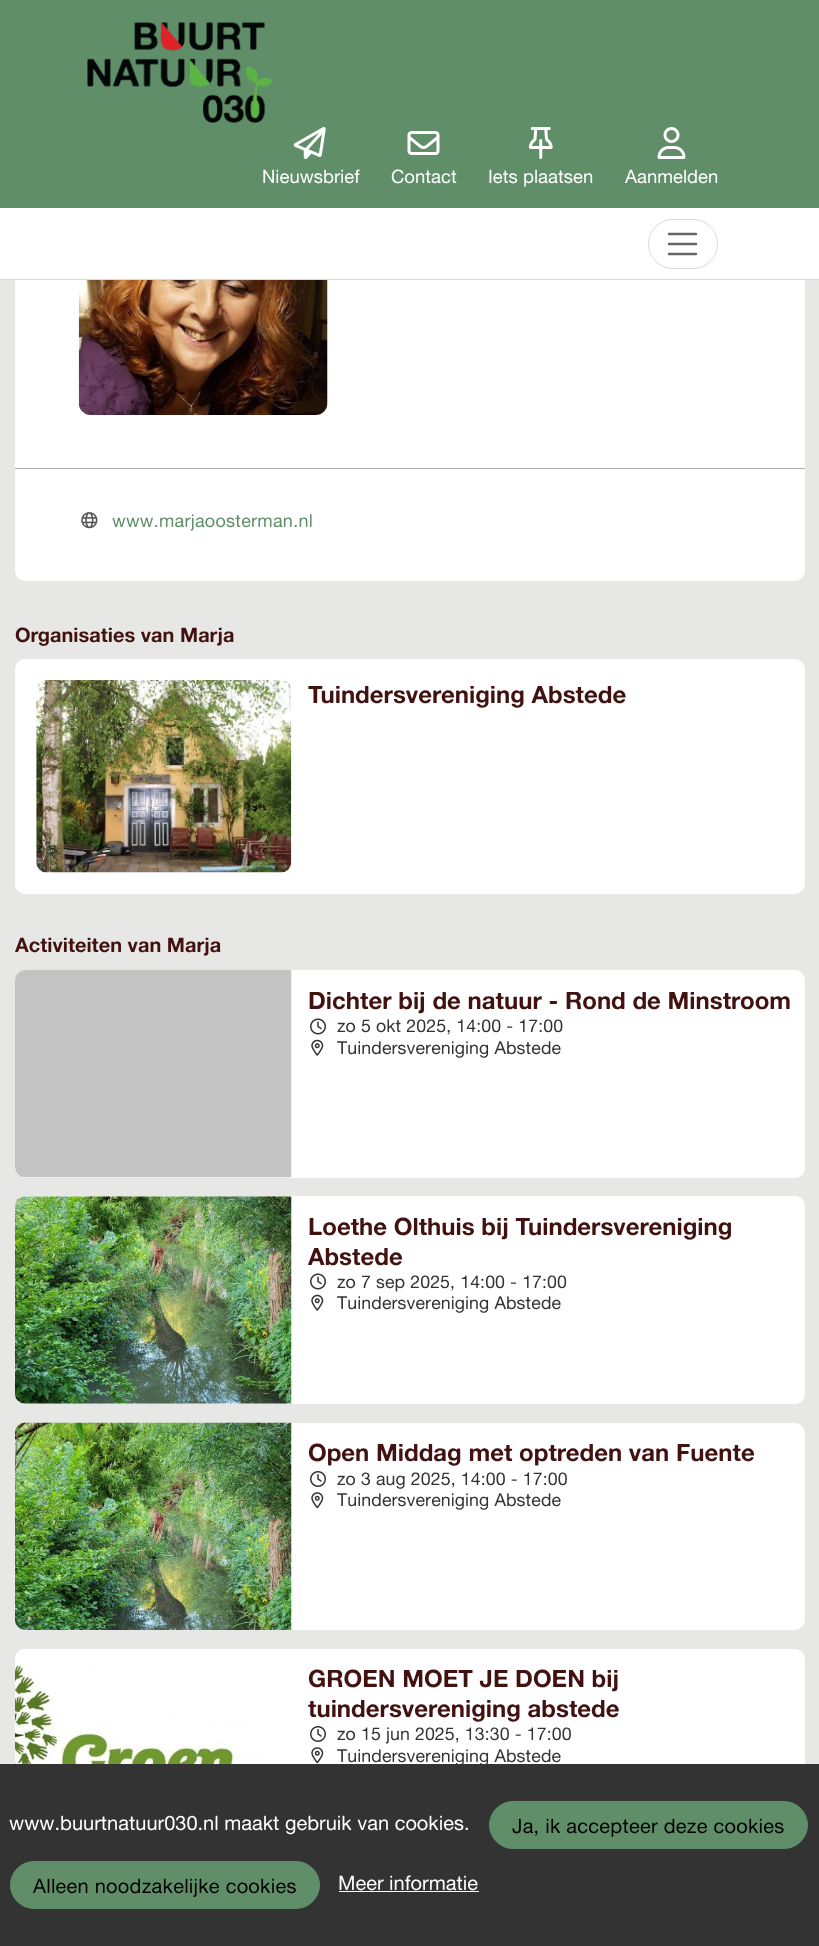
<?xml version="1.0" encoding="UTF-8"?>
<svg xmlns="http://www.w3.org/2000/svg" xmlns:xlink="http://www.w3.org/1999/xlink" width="819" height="1946">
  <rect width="100%" height="100%" fill="#e7e8e5" />
  <rect x="15" y="103" width="790" height="478" rx="10" fill="#ffffff" />
  <rect y="208" width="819" height="71" fill="#ffffff" />
  <rect y="279" width="819" height="1" fill="#d9d9d9" />
  <rect width="819" height="208" fill="#5f8e69" />
  <image x="87" y="22" width="186" height="101" xlink:href="image1.png" />
  <image x="293" y="127" width="33" height="32" xlink:href="image2.png" />
  <image x="407" y="131" width="33" height="24" xlink:href="image3.png" />
  <image x="528" y="127" width="25" height="32" xlink:href="image4.png" />
  <image x="657" y="127" width="29" height="32" xlink:href="image5.png" />
  <rect x="648.5" y="219.5" width="69" height="49" rx="24.5" fill="none" stroke="#d9d9d9" />
  <path d="M 669 234 h 27 m -27 10 h 27 m -27 10 h 27" fill="none" stroke="#666666" stroke-width="2.5" stroke-linecap="round" />
  <image x="78" y="280" width="250" height="135" xlink:href="image6.png" />
  <rect x="15" y="468" width="790" height="1" fill="#acaeae" />
  <image x="81" y="512" width="17" height="17" xlink:href="image7.png" />
  <rect x="15" y="659" width="790" height="235" rx="10" fill="#ffffff" />
  <image x="36" y="680" width="256" height="193" xlink:href="image8.png" />
  <rect x="15" y="970" width="790" height="208" rx="10" fill="#ffffff" />
  <image x="15" y="970" width="277" height="208" xlink:href="image9.png" />
  <image x="310" y="1018" width="16" height="17" xlink:href="image10.png" />
  <image x="311" y="1039" width="13" height="17" xlink:href="image11.png" />
  <rect x="15" y="1196" width="790" height="208" rx="10" fill="#ffffff" />
  <image x="15" y="1196" width="277" height="208" xlink:href="image12.png" />
  <image x="310" y="1273" width="16" height="17" xlink:href="image10.png" />
  <image x="311" y="1294" width="13" height="17" xlink:href="image11.png" />
  <rect x="15" y="1423" width="790" height="207" rx="10" fill="#ffffff" />
  <image x="15" y="1422" width="277" height="208" xlink:href="image13.png" />
  <image x="310" y="1471" width="16" height="16" xlink:href="image14.png" />
  <image x="311" y="1492" width="13" height="17" xlink:href="image15.png" />
  <rect x="15" y="1649" width="790" height="206" rx="10" fill="#ffffff" />
  <image x="15" y="1649" width="277" height="115" xlink:href="image16.png" />
  <image x="310" y="1726" width="16" height="16" xlink:href="image14.png" />
  <image x="311" y="1747" width="13" height="17" xlink:href="image15.png" />
  <rect y="1764" width="819" height="182" fill="#333333" />
  <rect x="489.5" y="1801.5" width="318" height="47" rx="23.5" fill="#5f8e69" stroke="#5f8e69" />
  <rect x="10.5" y="1861.5" width="309" height="47" rx="23.5" fill="#5f8e69" stroke="#5f8e69" />
  <rect x="339" y="1891" width="140" height="1" fill="#ffffff" />
  <text x="262" y="183" style="font-family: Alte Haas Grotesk; font-size: 18.5px; fill: #ffffff">Nieuwsbrief</text>
  <text x="391" y="183" style="font-family: Alte Haas Grotesk; font-size: 18.5px; fill: #ffffff">Contact</text>
  <text x="488" y="183" style="font-family: Alte Haas Grotesk; font-size: 18.5px; fill: #ffffff">Iets plaatsen</text>
  <text x="625" y="183" style="font-family: Alte Haas Grotesk; font-size: 18.5px; fill: #ffffff">Aanmelden</text>
  <text x="112" y="527" style="font-family: Alte Haas Grotesk; font-size: 18px; letter-spacing: 0.25px; fill: #5f8e69">www.marjaoosterman.nl</text>
  <text x="15" y="642" style="font-family: Alte Haas Grotesk; font-size: 20px; font-weight: bold; fill: #411210">Organisaties van Marja</text>
  <text x="308" y="703" style="font-family: Alte Haas Grotesk; font-size: 24px; font-weight: bold; fill: #411210">Tuindersvereniging Abstede</text>
  <text x="15" y="952" style="font-family: Alte Haas Grotesk; font-size: 20px; font-weight: bold; fill: #411210">Activiteiten van Marja</text>
  <text x="308" y="1009" style="font-family: Alte Haas Grotesk; font-size: 24px; font-weight: bold; fill: #411210">Dichter bij de natuur - Rond de Minstroom</text>
  <text x="337" y="1032" style="font-family: Alte Haas Grotesk; font-size: 17.75px; letter-spacing: 0.1px; fill: #333333">zo 5 okt 2025, 14:00 - 17:00</text>
  <text x="337" y="1054" style="font-family: Alte Haas Grotesk; font-size: 17.75px; letter-spacing: 0.1px; fill: #333333">Tuindersvereniging Abstede</text>
  <text x="308" y="1235" style="font-family: Alte Haas Grotesk; font-size: 24px; font-weight: bold; fill: #411210">Loethe Olthuis bij Tuindersvereniging</text>
  <text x="308" y="1265" style="font-family: Alte Haas Grotesk; font-size: 24px; font-weight: bold; fill: #411210">Abstede</text>
  <text x="337" y="1288" style="font-family: Alte Haas Grotesk; font-size: 17.75px; letter-spacing: 0.1px; fill: #333333">zo 7 sep 2025, 14:00 - 17:00</text>
  <text x="337" y="1309" style="font-family: Alte Haas Grotesk; font-size: 17.75px; letter-spacing: 0.1px; fill: #333333">Tuindersvereniging Abstede</text>
  <text x="308" y="1461" style="font-family: Alte Haas Grotesk; font-size: 24px; font-weight: bold; fill: #411210">Open Middag met optreden van Fuente</text>
  <text x="337" y="1485" style="font-family: Alte Haas Grotesk; font-size: 17.75px; letter-spacing: 0.1px; fill: #333333">zo 3 aug 2025, 14:00 - 17:00</text>
  <text x="337" y="1506" style="font-family: Alte Haas Grotesk; font-size: 17.75px; letter-spacing: 0.1px; fill: #333333">Tuindersvereniging Abstede</text>
  <text x="308" y="1687" style="font-family: Alte Haas Grotesk; font-size: 24px; font-weight: bold; fill: #411210">GROEN MOET JE DOEN bij</text>
  <text x="308" y="1717" style="font-family: Alte Haas Grotesk; font-size: 24px; font-weight: bold; fill: #411210">tuindersvereniging abstede</text>
  <text x="337" y="1740" style="font-family: Alte Haas Grotesk; font-size: 17.75px; letter-spacing: 0.1px; fill: #333333">zo 15 jun 2025, 13:30 - 17:00</text>
  <text x="337" y="1762" style="font-family: Alte Haas Grotesk; font-size: 17.75px; letter-spacing: 0.1px; fill: #333333">Tuindersvereniging Abstede</text>
  <text x="9" y="1830" style="font-family: Alte Haas Grotesk; font-size: 20px; fill: #ffffff">www.buurtnatuur030.nl maakt gebruik van cookies.</text>
  <text x="512" y="1833" style="font-family: Alte Haas Grotesk; font-size: 20px; letter-spacing: 0.25px; fill: #000000">Ja, ik accepteer deze cookies</text>
  <text x="33" y="1893" style="font-family: Alte Haas Grotesk; font-size: 20px; letter-spacing: 0.25px; fill: #000000">Alleen noodzakelijke cookies</text>
  <text x="338" y="1890" style="font-family: Alte Haas Grotesk; font-size: 20px; fill: #ffffff">Meer informatie</text>
</svg>
